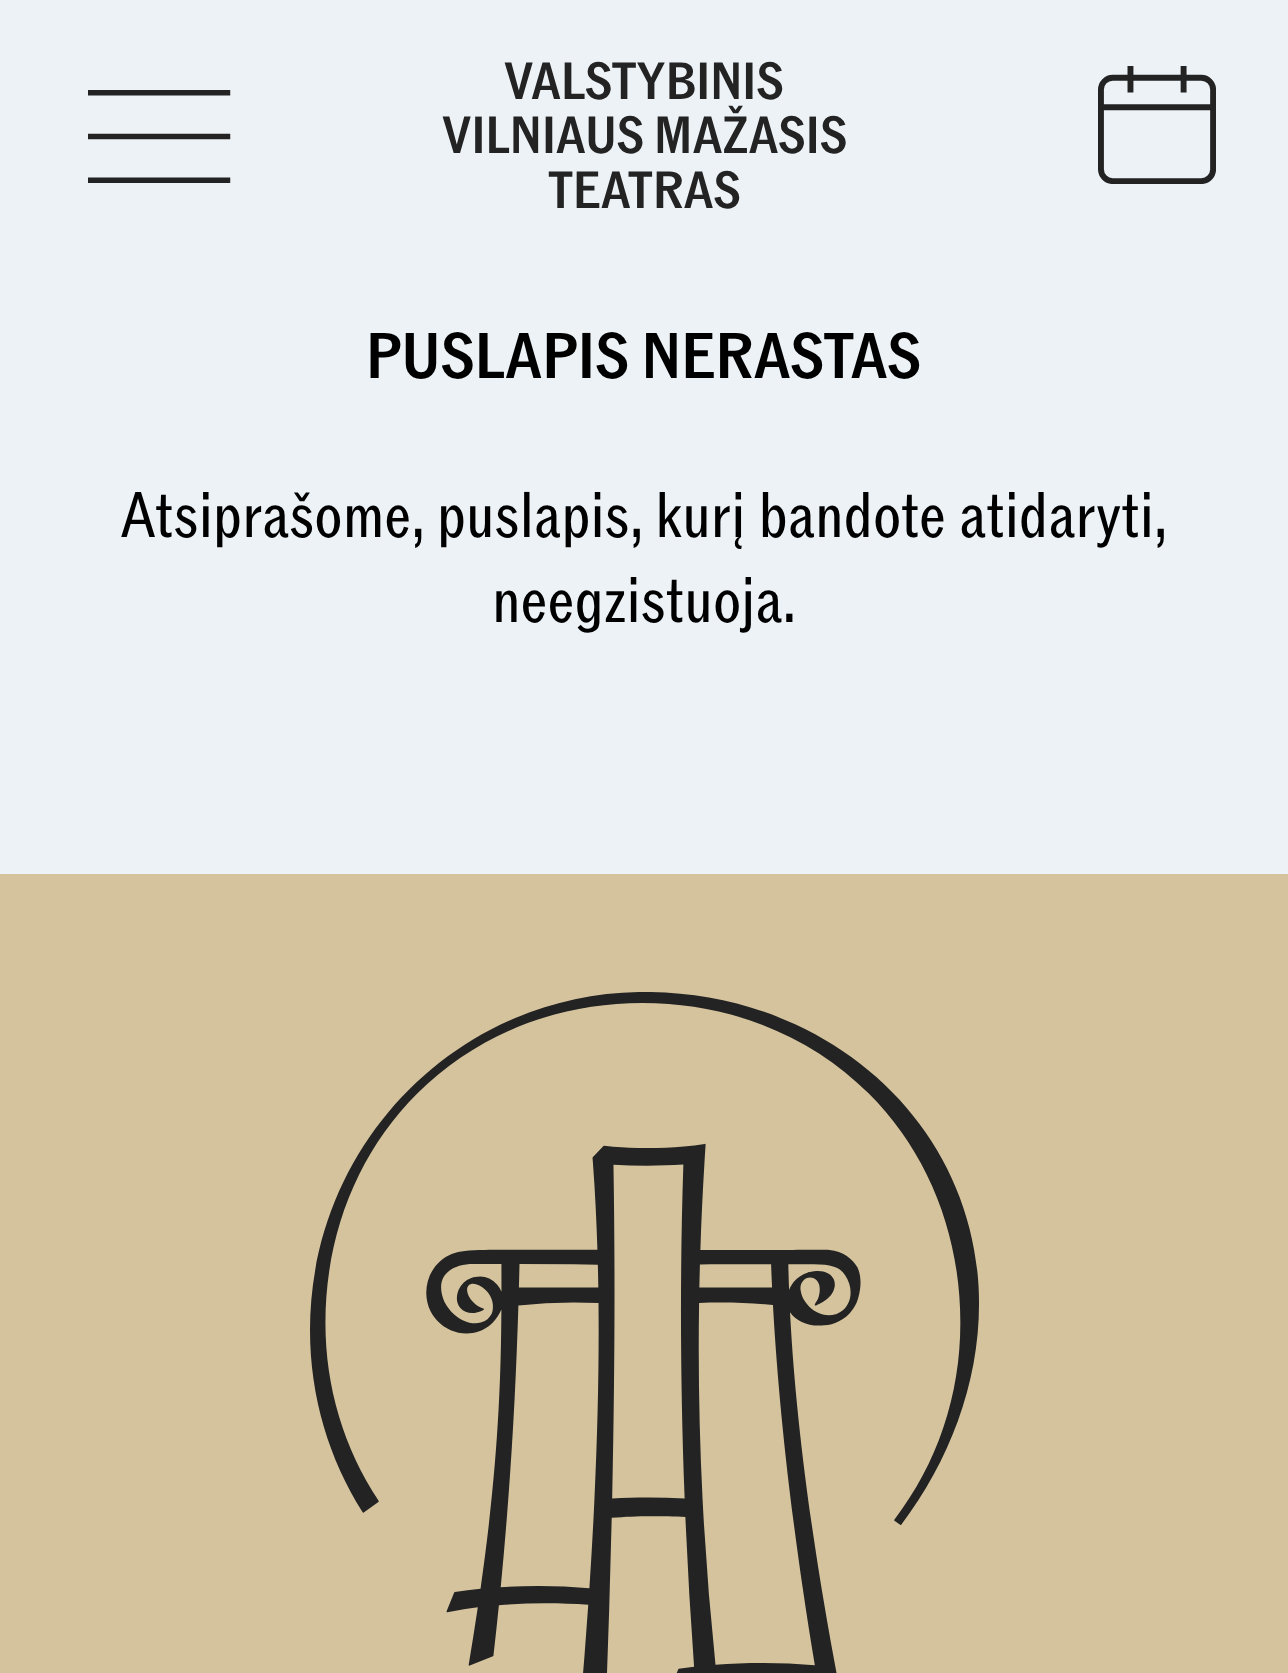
<?xml version="1.0" encoding="UTF-8"?>
<svg xmlns="http://www.w3.org/2000/svg" xmlns:xlink="http://www.w3.org/1999/xlink" width="1288" height="1673">
  <rect width="100%" height="100%" fill="#edf2f6" />
  <image x="88" y="90" width="143" height="93" xlink:href="image1.png" />
  <image x="1098" y="66" width="118" height="118" xlink:href="image2.png" />
  <rect y="874" width="1288" height="799" fill="#d4c39d" />
  <image x="310" y="992" width="669" height="681" xlink:href="image3.png" />
  <text x="504" y="99" style="font-family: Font; font-size: 52px; font-weight: 500; fill: #232323">VALSTYBINIS</text>
  <text x="442" y="153" style="font-family: Font; font-size: 52px; font-weight: 500; fill: #232323">VILNIAUS MAŽASIS</text>
  <text x="548" y="208" style="font-family: Font; font-size: 52px; font-weight: 500; fill: #232323">TEATRAS</text>
  <text x="366" y="378" style="font-family: Font; font-size: 64.4px; font-weight: 500; fill: #000000">PUSLAPIS NERASTAS</text>
  <text x="120" y="537" style="font-family: Font; font-size: 64.4px; fill: #000000">Atsiprašome, puslapis, kurį bandote atidaryti,</text>
  <text x="492" y="622" style="font-family: Font; font-size: 64.4px; fill: #000000">neegzistuoja.</text>
</svg>
